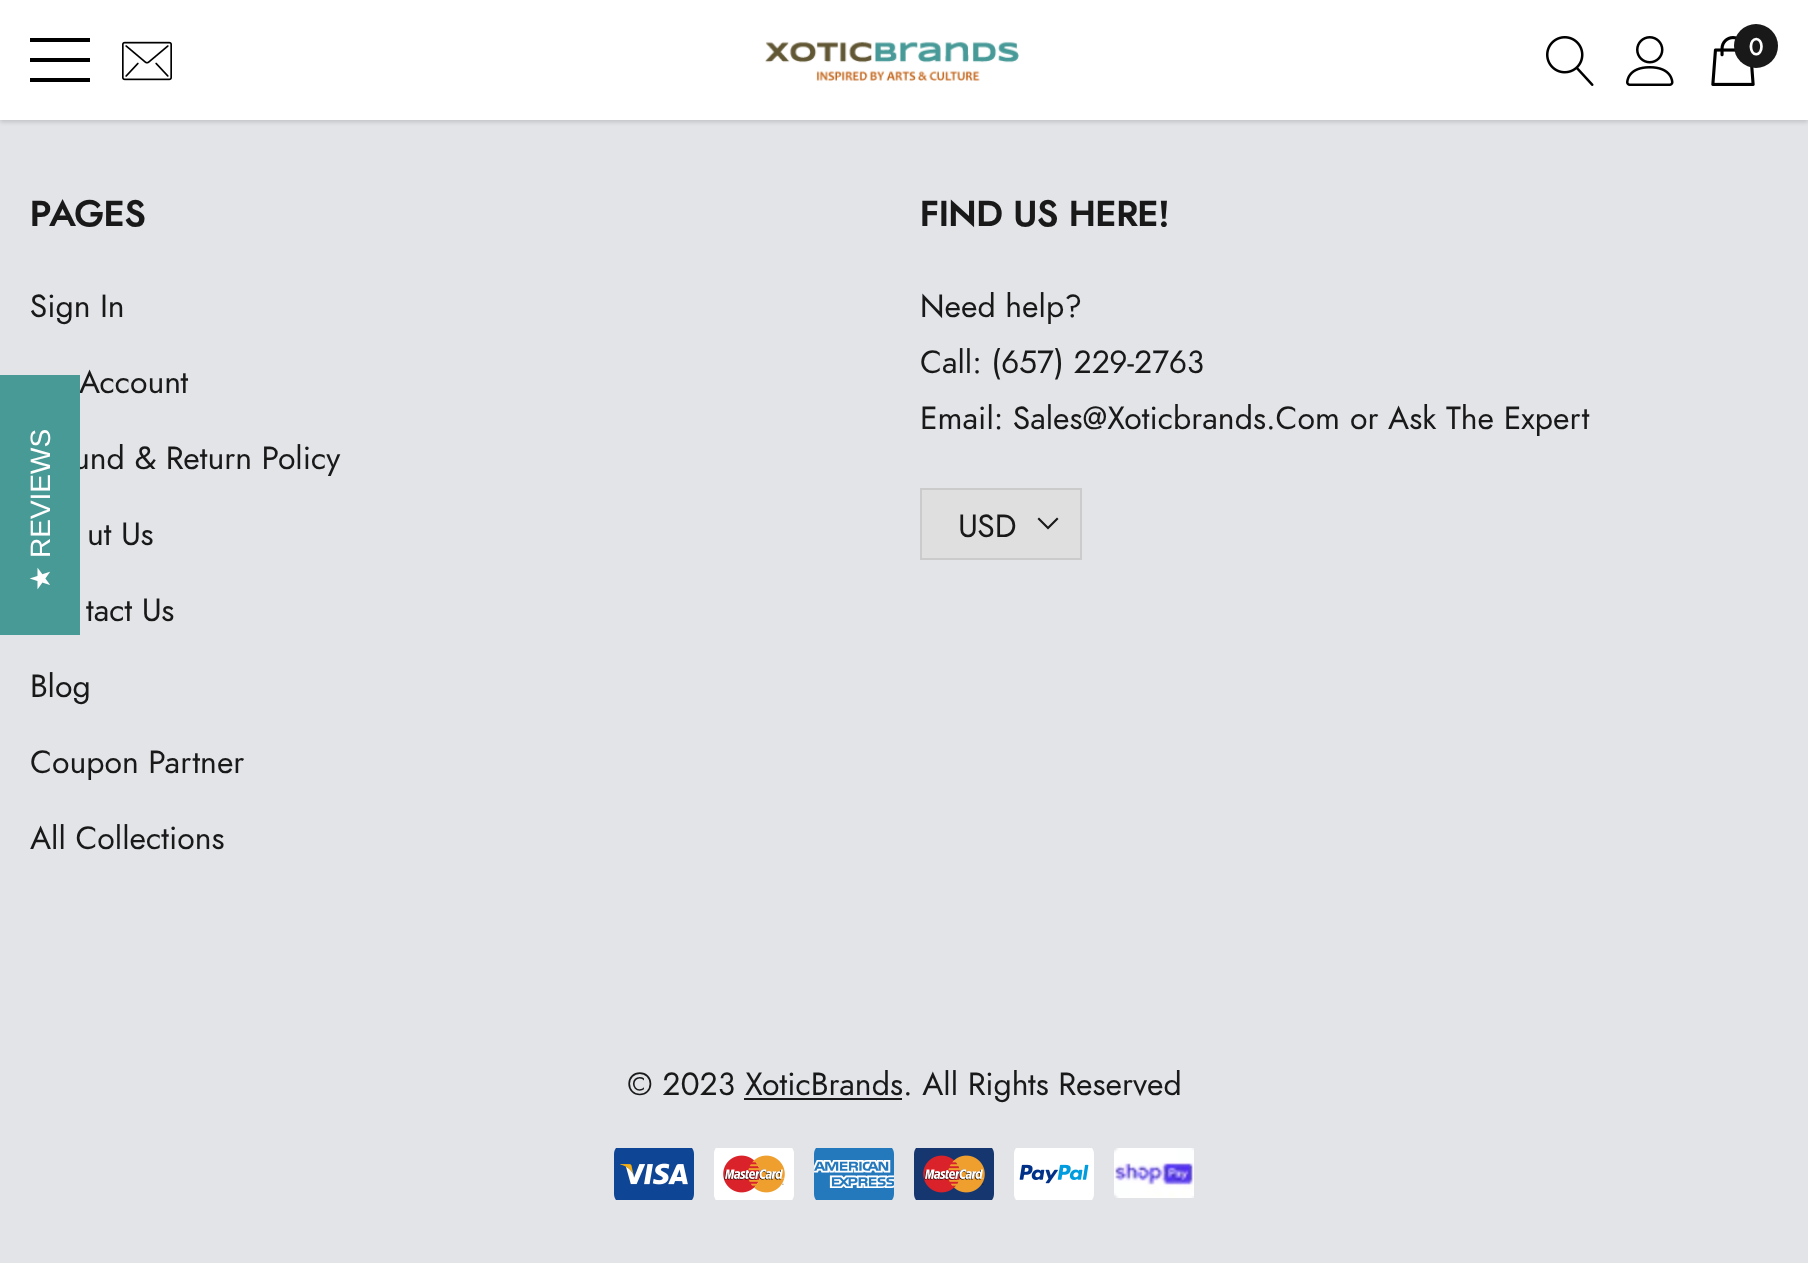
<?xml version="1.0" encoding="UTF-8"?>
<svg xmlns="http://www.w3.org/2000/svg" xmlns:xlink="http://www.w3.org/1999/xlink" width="1808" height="1263">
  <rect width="100%" height="100%" fill="#e2e4e8" />
  <rect y="2" width="1808" height="120" fill="#000000" fill-opacity="0.15" filter="blur(2px)" />
  <rect width="1808" height="120" fill="#ffffff" />
  <rect x="30" y="58" width="60" height="4" fill="#000000" />
  <rect x="30" y="38" width="60" height="4" fill="#000000" />
  <rect x="30" y="78" width="60" height="4" fill="#000000" />
  <image x="122" y="41" width="50" height="40" xlink:href="image1.png" />
  <image x="765" y="41" width="254" height="40" xlink:href="image2.png" />
  <image x="1546" y="36" width="48" height="50" xlink:href="image3.png" />
  <image x="1626" y="36" width="48" height="50" xlink:href="image4.png" />
  <image x="1711" y="36" width="44" height="50" xlink:href="image5.png" />
  <circle cx="1756" cy="46" r="22" fill="#191919" />
  <rect x="922" y="490" width="158" height="68" fill="#dfdfdf" />
  <path d="M 1048 529.5 l -10.5 -10.5 l 1.5 -1.5 l 9 9 l 9 -9 l 1.5 1.5 z" fill="#191919" />
  <rect x="921" y="489" width="160" height="70" fill="none" stroke="#cbcbcb" stroke-width="2" />
  <rect x="744" y="1098" width="158" height="2" fill="#191919" />
  <image x="614" y="1148" width="80" height="52" xlink:href="image6.png" />
  <image x="714" y="1148" width="80" height="52" xlink:href="image7.png" />
  <image x="814" y="1148" width="80" height="52" xlink:href="image8.png" />
  <image x="914" y="1148" width="80" height="52" xlink:href="image9.png" />
  <image x="1014" y="1148" width="80" height="52" xlink:href="image10.png" />
  <image x="1114" y="1148" width="80" height="50" xlink:href="image11.png" />
  <text x="1749" y="55" style="font-family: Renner; font-size: 24px; font-weight: 500; fill: #ffffff">0</text>
  <text x="30" y="226" style="font-family: Renner; font-size: 36px; font-weight: bold; fill: #191919">PAGES</text>
  <text x="30" y="317" style="font-family: Renner; font-size: 32px; fill: #191919">Sign In</text>
  <text x="79" y="393" style="font-family: Renner; font-size: 32px; fill: #191919">Account</text>
  <text x="73" y="469" style="font-family: Renner; font-size: 32px; fill: #191919">und &amp; Return Policy</text>
  <text x="87" y="545" style="font-family: Renner; font-size: 32px; fill: #191919">ut Us</text>
  <text x="86" y="621" style="font-family: Renner; font-size: 32px; fill: #191919">tact Us</text>
  <text x="30" y="697" style="font-family: Renner; font-size: 32px; fill: #191919">Blog</text>
  <text x="30" y="773" style="font-family: Renner; font-size: 32px; fill: #191919">Coupon Partner</text>
  <text x="30" y="849" style="font-family: Renner; font-size: 32px; fill: #191919">All Collections</text>
  <text x="920" y="226" style="font-family: Renner; font-size: 36px; font-weight: bold; fill: #191919">FIND US HERE!</text>
  <text x="920" y="317" style="font-family: Renner; font-size: 32px; fill: #191919">Need help?</text>
  <text x="920" y="373" style="font-family: Renner; font-size: 32px; fill: #191919">Call: (657) 229-2763</text>
  <text x="920" y="429" style="font-family: Renner; font-size: 32px; fill: #191919">Email: Sales@Xoticbrands.Com</text>
  <text x="1350" y="429" style="font-family: Renner; font-size: 32px; fill: #191919">or Ask The Expert</text>
  <text x="958" y="537" style="font-family: Renner; font-size: 32px; fill: #191919">USD</text>
  <text x="627" y="1095" style="font-family: Renner; font-size: 32px; fill: #191919">© 2023 XoticBrands</text>
  <text x="903" y="1095" style="font-family: Renner; font-size: 32px; fill: #191919">. All Rights Reserved</text>
  <rect y="375" width="80" height="260" fill="#489a96" />
  <text x="50" y="558" transform="rotate(-90 50 558)" style="font-family: Liberation Sans; font-size: 28px; fill: #ffffff">REVIEWS</text>
  <text x="50" y="591" transform="rotate(-90 50 591)" style="font-family: DejaVu Sans; font-size: 28px; fill: #ffffff">★</text>
</svg>
